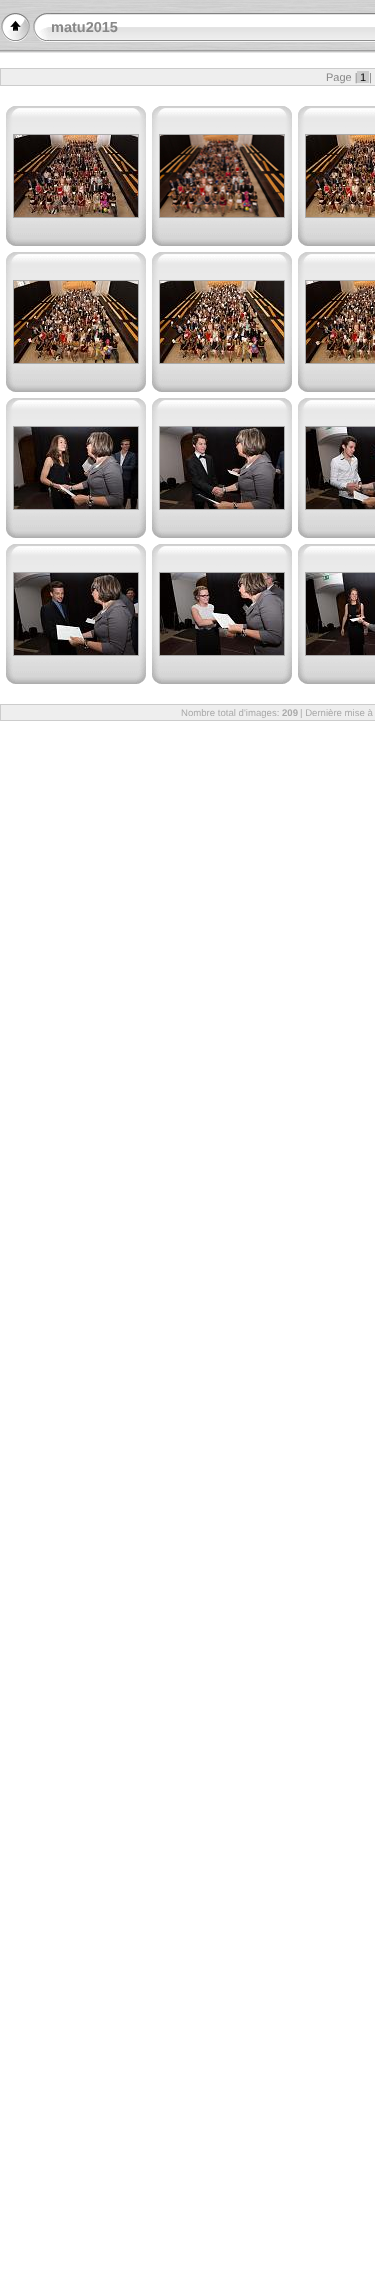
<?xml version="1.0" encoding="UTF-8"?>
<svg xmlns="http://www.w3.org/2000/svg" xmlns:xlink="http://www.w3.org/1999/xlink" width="375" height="2274">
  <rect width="100%" height="100%" fill="#ffffff" />
  <image x="0" y="0" width="375" height="53" xlink:href="image1.png" />
  <image x="1" y="13" width="29" height="29" xlink:href="image2.png" />
  <image x="33" y="13" width="18" height="29" xlink:href="image3.png" />
  <image x="51" y="13" width="324" height="29" xlink:href="image4.png" />
  <rect x="1" y="69" width="374" height="16" fill="#eeeeee" />
  <rect y="68" width="375" height="1" fill="#cccccc" />
  <rect y="85" width="375" height="1" fill="#cccccc" />
  <rect y="68" width="1" height="18" fill="#cccccc" />
  <rect x="357" y="71" width="12" height="12" fill="#cccccc" />
  <image x="6" y="106" width="140" height="140" xlink:href="image5.png" />
  <rect x="13.5" y="134.5" width="125" height="83" fill="none" stroke="#aaaaaa" />
  <image x="14" y="135" width="124" height="82" xlink:href="image6.png" />
  <image x="152" y="106" width="140" height="140" xlink:href="image5.png" />
  <rect x="159.5" y="134.5" width="125" height="83" fill="none" stroke="#aaaaaa" />
  <image x="160" y="135" width="124" height="82" xlink:href="image7.png" />
  <image x="298" y="106" width="77" height="140" xlink:href="image8.png" />
  <rect x="305.5" y="134.5" width="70" height="83" fill="none" stroke="#aaaaaa" />
  <image x="306" y="135" width="69" height="82" xlink:href="image9.png" />
  <image x="6" y="252" width="140" height="140" xlink:href="image5.png" />
  <rect x="13.5" y="280.5" width="125" height="83" fill="none" stroke="#aaaaaa" />
  <image x="14" y="281" width="124" height="82" xlink:href="image10.png" />
  <image x="152" y="252" width="140" height="140" xlink:href="image5.png" />
  <rect x="159.5" y="280.5" width="125" height="83" fill="none" stroke="#aaaaaa" />
  <image x="160" y="281" width="124" height="82" xlink:href="image11.png" />
  <image x="298" y="252" width="77" height="140" xlink:href="image8.png" />
  <rect x="305.5" y="280.5" width="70" height="83" fill="none" stroke="#aaaaaa" />
  <image x="306" y="281" width="69" height="82" xlink:href="image12.png" />
  <image x="6" y="398" width="140" height="140" xlink:href="image5.png" />
  <rect x="13.5" y="426.5" width="125" height="83" fill="none" stroke="#aaaaaa" />
  <image x="14" y="427" width="124" height="82" xlink:href="image13.png" />
  <image x="152" y="398" width="140" height="140" xlink:href="image5.png" />
  <rect x="159.5" y="426.5" width="125" height="83" fill="none" stroke="#aaaaaa" />
  <image x="160" y="427" width="124" height="82" xlink:href="image14.png" />
  <image x="298" y="398" width="77" height="140" xlink:href="image8.png" />
  <rect x="305.5" y="426.5" width="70" height="83" fill="none" stroke="#aaaaaa" />
  <image x="306" y="427" width="69" height="82" xlink:href="image15.png" />
  <image x="6" y="544" width="140" height="140" xlink:href="image5.png" />
  <rect x="13.5" y="572.5" width="125" height="83" fill="none" stroke="#aaaaaa" />
  <image x="14" y="573" width="124" height="82" xlink:href="image16.png" />
  <image x="152" y="544" width="140" height="140" xlink:href="image5.png" />
  <rect x="159.5" y="572.5" width="125" height="83" fill="none" stroke="#aaaaaa" />
  <image x="160" y="573" width="124" height="82" xlink:href="image17.png" />
  <image x="298" y="544" width="77" height="140" xlink:href="image8.png" />
  <rect x="305.5" y="572.5" width="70" height="83" fill="none" stroke="#aaaaaa" />
  <image x="306" y="573" width="69" height="82" xlink:href="image18.png" />
  <rect x="1" y="705" width="374" height="15" fill="#eeeeee" />
  <rect y="704" width="375" height="1" fill="#cccccc" />
  <rect y="720" width="375" height="1" fill="#cccccc" />
  <rect y="704" width="1" height="17" fill="#cccccc" />
  <text x="51" y="32" style="font-family: Liberation Sans; font-size: 14.5px; font-weight: bold; fill: #888888">matu2015</text>
  <text x="326" y="81" style="font-family: Liberation Sans; font-size: 11px; fill: #888888">Page |</text>
  <text x="360" y="81" style="font-family: Liberation Sans; font-size: 11px; fill: #000000">1</text>
  <text x="369" y="81" style="font-family: Liberation Sans; font-size: 11px; fill: #888888">|</text>
  <text x="181" y="716" style="font-family: Liberation Sans; font-size: 9.6px; fill: #aaaaaa">Nombre total d'images:</text>
  <text x="282" y="716" style="font-family: Liberation Sans; font-size: 9.6px; font-weight: bold; fill: #aaaaaa">209</text>
  <text x="300" y="716" style="font-family: Liberation Sans; font-size: 9.6px; fill: #aaaaaa">| Dernière mise à</text>
</svg>
